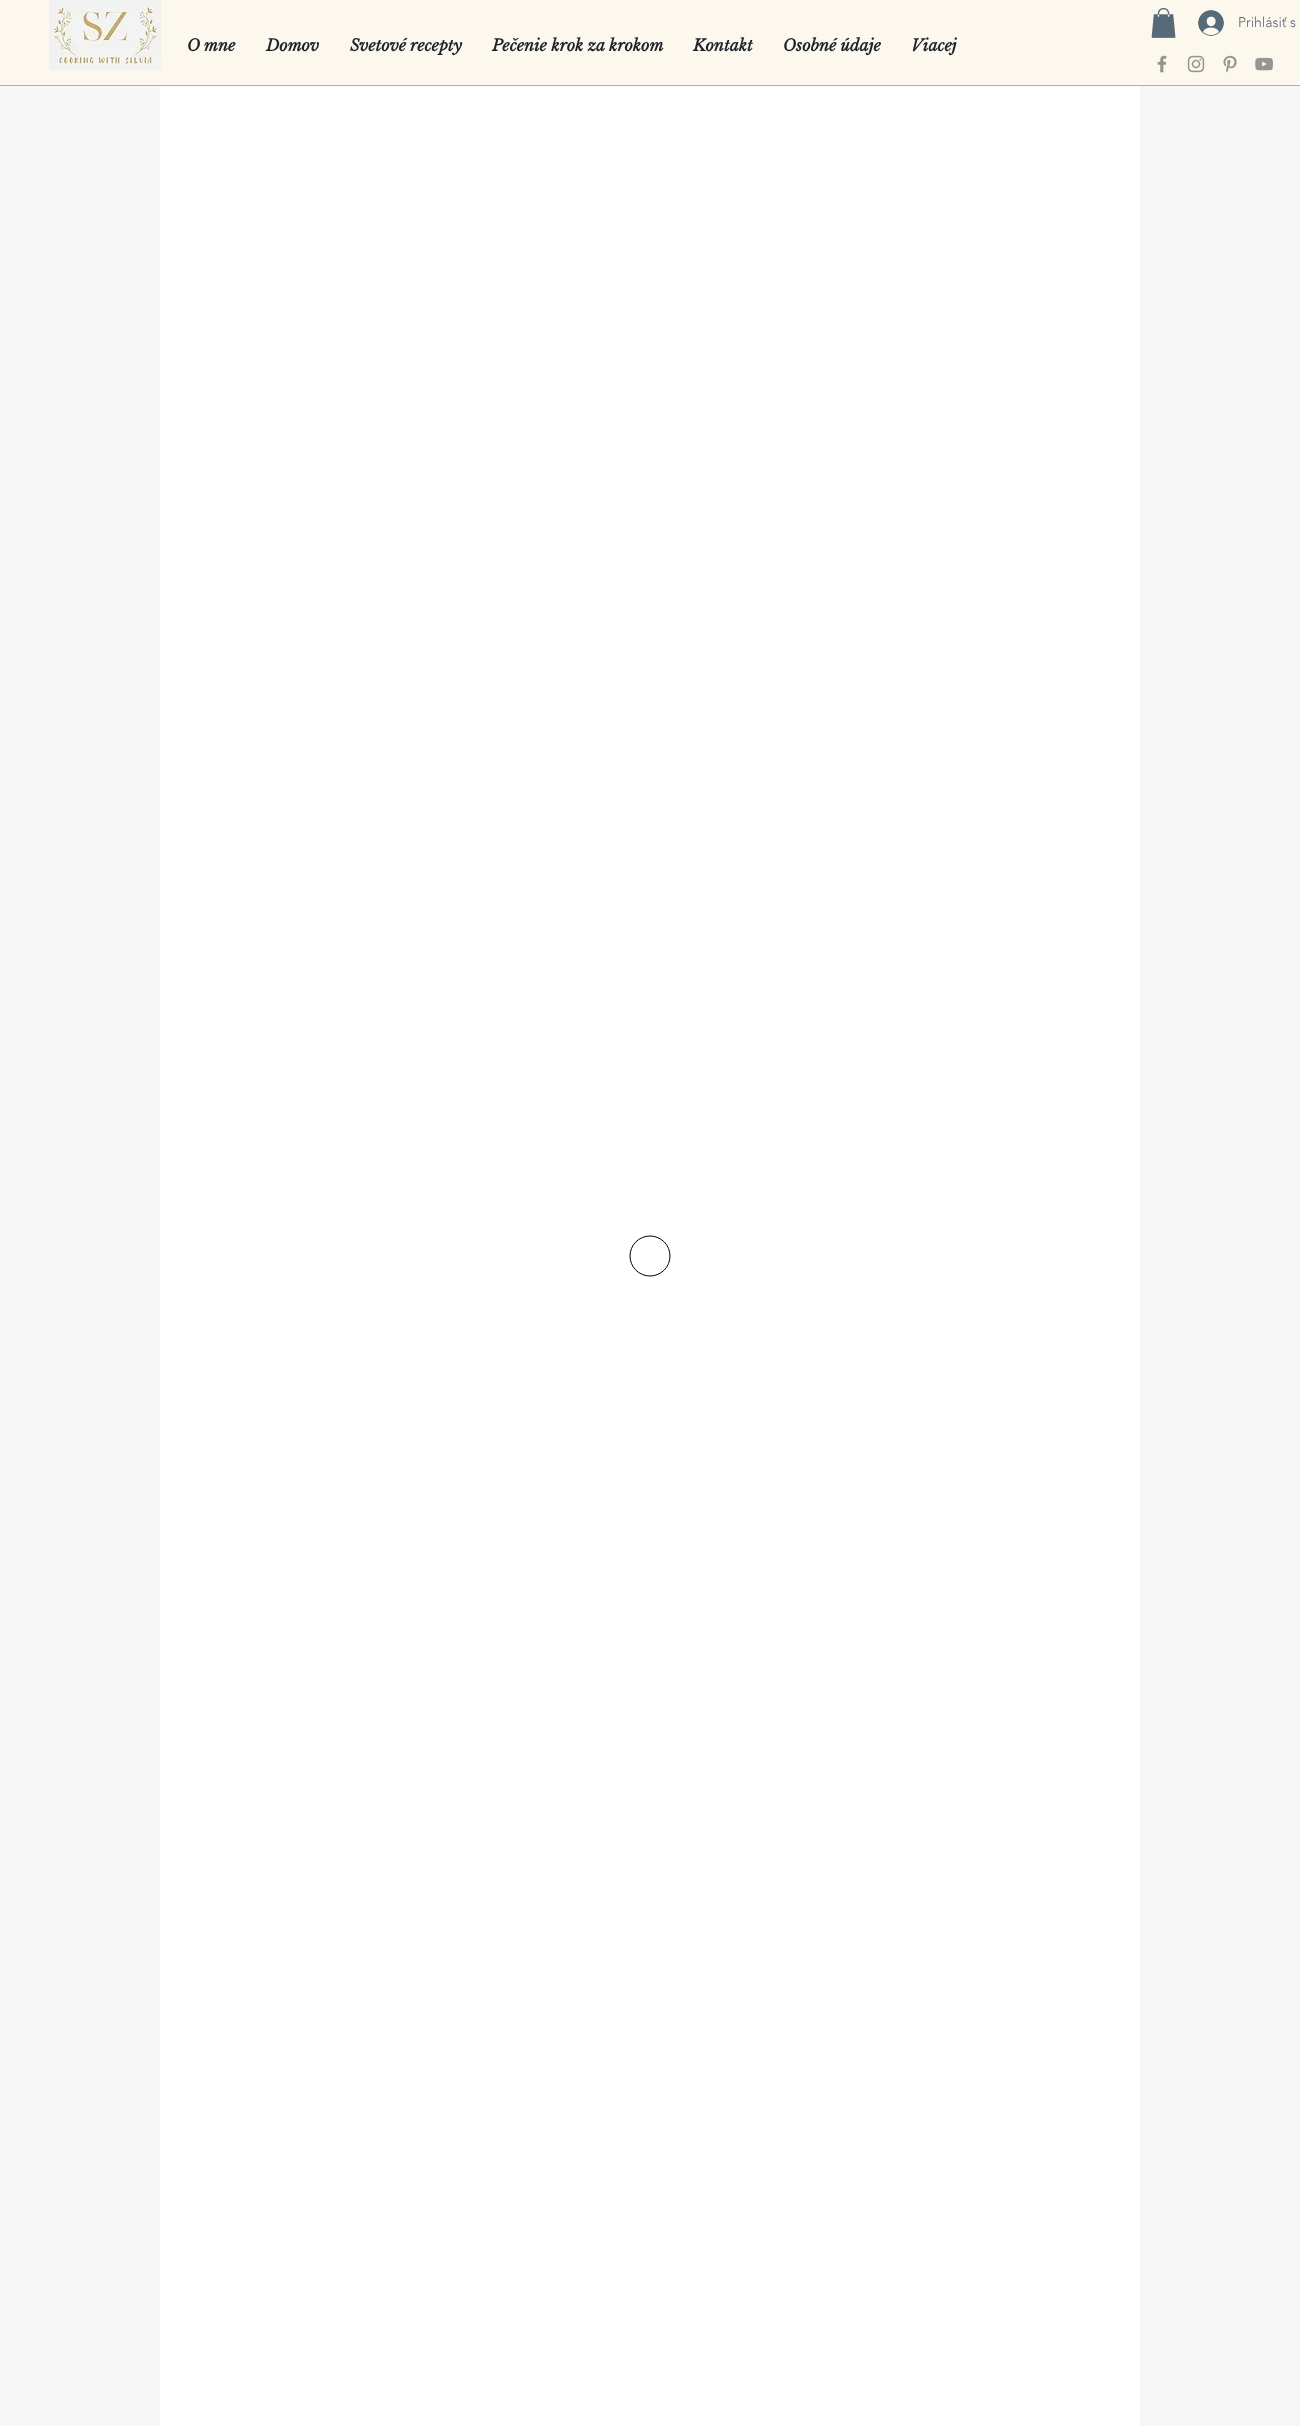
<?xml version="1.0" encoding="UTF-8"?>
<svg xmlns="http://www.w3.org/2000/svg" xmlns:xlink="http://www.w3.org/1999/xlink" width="1300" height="2426">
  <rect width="100%" height="100%" fill="#f7f7f7" />
  <rect width="1300" height="85" fill="#fcf8ed" />
  <rect y="85" width="1300" height="1" fill="#c1ae81" />
  <image x="49" y="0" width="112" height="70" xlink:href="image1.png" />
  <image x="1151" y="8" width="25" height="30" xlink:href="image2.png" />
  <image x="1198" y="10" width="26" height="26" xlink:href="image3.png" />
  <image x="1157" y="55" width="10" height="18" xlink:href="image4.png" />
  <image x="1187" y="55" width="18" height="18" xlink:href="image5.png" />
  <image x="1223" y="55" width="14" height="18" xlink:href="image6.png" />
  <image x="1255" y="57" width="19" height="14" xlink:href="image7.png" />
  <rect x="160" y="86" width="980" height="2340" fill="#ffffff" />
  <circle cx="650" cy="1256" r="20" fill="none" stroke="#000000" />
  <text x="1238" y="27" style="font-family: 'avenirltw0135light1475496'; font-size: 14px; font-weight: 300; fill: #576a7a">Prihlásiť s</text>
  <text x="187" y="51" style="font-family: Libre Baskerville; font-size: 16px; font-weight: bold; font-style: italic; fill: #1d2329">O mne</text>
  <text x="266" y="51" style="font-family: Libre Baskerville; font-size: 16px; font-weight: bold; font-style: italic; fill: #1d2329">Domov</text>
  <text x="350" y="51" style="font-family: Libre Baskerville; font-size: 16px; font-weight: bold; font-style: italic; fill: #1d2329">Svetové recepty</text>
  <text x="492" y="51" style="font-family: Libre Baskerville; font-size: 16px; font-weight: bold; font-style: italic; fill: #1d2329">Pečenie krok za krokom</text>
  <text x="693" y="51" style="font-family: Libre Baskerville; font-size: 16px; font-weight: bold; font-style: italic; fill: #1d2329">Kontakt</text>
  <text x="783" y="51" style="font-family: Libre Baskerville; font-size: 16px; font-weight: bold; font-style: italic; fill: #1d2329">Osobné údaje</text>
  <text x="911" y="51" style="font-family: Libre Baskerville; font-size: 16px; font-weight: bold; font-style: italic; fill: #1d2329">Viacej</text>
</svg>
